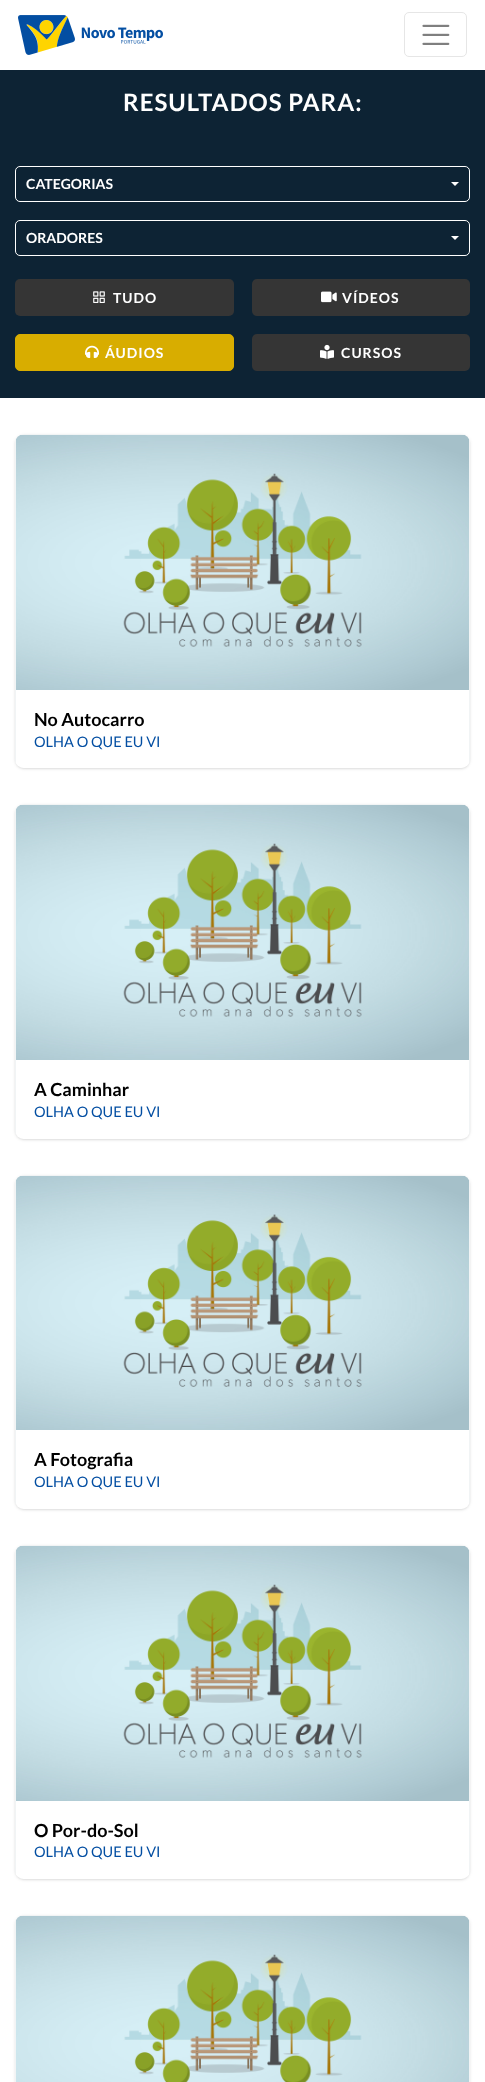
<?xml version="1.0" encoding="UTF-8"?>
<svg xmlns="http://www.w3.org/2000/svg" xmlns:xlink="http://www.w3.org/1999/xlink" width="485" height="2082">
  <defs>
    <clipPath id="clip1"><path d="M 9 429 h 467 v 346 h -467 z m 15 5 h 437 c 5 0 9 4 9 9 v 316 c 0 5 -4 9 -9 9 h -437 c -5 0 -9 -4 -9 -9 v -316 c 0 -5 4 -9 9 -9 z" clip-rule="evenodd" /></clipPath>
    <clipPath id="clip2"><rect x="15" y="434" width="455" height="334" rx="9" /></clipPath>
    <clipPath id="clip3"><path d="M 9 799 h 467 v 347 h -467 z m 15 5 h 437 c 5 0 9 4 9 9 v 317 c 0 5 -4 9 -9 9 h -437 c -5 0 -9 -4 -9 -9 v -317 c 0 -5 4 -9 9 -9 z" clip-rule="evenodd" /></clipPath>
    <clipPath id="clip4"><rect x="15" y="804" width="455" height="335" rx="9" /></clipPath>
    <clipPath id="clip5"><path d="M 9 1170 h 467 v 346 h -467 z m 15 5 h 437 c 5 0 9 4 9 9 v 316 c 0 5 -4 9 -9 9 h -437 c -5 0 -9 -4 -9 -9 v -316 c 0 -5 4 -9 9 -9 z" clip-rule="evenodd" /></clipPath>
    <clipPath id="clip6"><rect x="15" y="1175" width="455" height="334" rx="9" /></clipPath>
    <clipPath id="clip7"><path d="M 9 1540 h 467 v 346 h -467 z m 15 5 h 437 c 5 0 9 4 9 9 v 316 c 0 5 -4 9 -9 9 h -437 c -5 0 -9 -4 -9 -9 v -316 c 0 -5 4 -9 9 -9 z" clip-rule="evenodd" /></clipPath>
    <clipPath id="clip8"><rect x="15" y="1545" width="455" height="334" rx="9" /></clipPath>
    <clipPath id="clip9"><rect x="15" y="1915" width="455" height="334" rx="9" /></clipPath>
  </defs>
  <rect width="100%" height="100%" fill="#ffffff" />
  <image x="18" y="15" width="145" height="40" xlink:href="image1.png" />
  <rect x="404.5" y="12.5" width="62" height="44" rx="4.5" fill="none" stroke="#e6e6e6" />
  <image x="422" y="24" width="28" height="21" xlink:href="image2.png" />
  <rect y="70" width="485" height="328" fill="#0d2334" />
  <rect x="15.5" y="166.5" width="454" height="35" rx="4.5" fill="none" stroke="#ffffff" />
  <path d="M 451 182 h 8 l -4 4 z" fill="#ffffff" />
  <rect x="15.5" y="220.5" width="454" height="35" rx="4.5" fill="none" stroke="#ffffff" />
  <path d="M 451 236 h 8 l -4 4 z" fill="#ffffff" />
  <rect x="15" y="279" width="219" height="37" rx="5" fill="#353535" />
  <image x="93" y="291" width="12" height="12" xlink:href="image3.png" />
  <rect x="252" y="279" width="218" height="37" rx="5" fill="#353535" />
  <image x="321" y="291" width="16" height="12" xlink:href="image4.png" />
  <rect x="15.5" y="334.5" width="218" height="36" rx="4.5" fill="#d8ad00" stroke="#d8ad00" />
  <image x="85" y="345" width="14" height="13" xlink:href="image5.png" />
  <rect x="252" y="334" width="218" height="37" rx="5" fill="#353535" />
  <image x="320" y="344" width="14" height="15" xlink:href="image6.png" />
  <rect x="16" y="436" width="453" height="332" rx="8" fill="#000000" fill-opacity="0.1" filter="blur(1px)" />
  <g clip-path="url(#clip1)">
    <rect x="15" y="435" width="455" height="334" rx="9" fill="#000000" fill-opacity="0.1" filter="blur(1.5px)" />
  </g>
  <g clip-path="url(#clip2)">
    <rect x="15" y="434" width="455" height="1" fill="#f1f4f5" />
    <rect x="469" y="434" width="1" height="334" fill="#f1f4f5" />
    <rect x="15" y="434" width="1" height="334" fill="#f1f4f5" />
  </g>
  <image x="16" y="435" width="453" height="255" xlink:href="image7.png" />
  <g clip-path="url(#clip2)">
    <rect x="16" y="690" width="453" height="78" fill="#ffffff" />
  </g>
  <rect x="16" y="806" width="453" height="333" rx="8" fill="#000000" fill-opacity="0.1" filter="blur(1px)" />
  <g clip-path="url(#clip3)">
    <rect x="15" y="805" width="455" height="335" rx="9" fill="#000000" fill-opacity="0.1" filter="blur(1.5px)" />
  </g>
  <g clip-path="url(#clip4)">
    <rect x="15" y="804" width="455" height="1" fill="#f1f4f5" />
    <rect x="469" y="804" width="1" height="335" fill="#f1f4f5" />
    <rect x="15" y="804" width="1" height="335" fill="#f1f4f5" />
  </g>
  <image x="16" y="805" width="453" height="255" xlink:href="image7.png" />
  <g clip-path="url(#clip4)">
    <rect x="16" y="1060" width="453" height="79" fill="#ffffff" />
  </g>
  <rect x="16" y="1177" width="453" height="332" rx="8" fill="#000000" fill-opacity="0.1" filter="blur(1px)" />
  <g clip-path="url(#clip5)">
    <rect x="15" y="1176" width="455" height="334" rx="9" fill="#000000" fill-opacity="0.1" filter="blur(1.5px)" />
  </g>
  <g clip-path="url(#clip6)">
    <rect x="15" y="1175" width="455" height="1" fill="#f1f4f5" />
    <rect x="469" y="1175" width="1" height="334" fill="#f1f4f5" />
    <rect x="15" y="1175" width="1" height="334" fill="#f1f4f5" />
  </g>
  <image x="16" y="1176" width="453" height="254" xlink:href="image8.png" />
  <g clip-path="url(#clip6)">
    <rect x="16" y="1430" width="453" height="79" fill="#ffffff" />
  </g>
  <rect x="16" y="1547" width="453" height="332" rx="8" fill="#000000" fill-opacity="0.1" filter="blur(1px)" />
  <g clip-path="url(#clip7)">
    <rect x="15" y="1546" width="455" height="334" rx="9" fill="#000000" fill-opacity="0.1" filter="blur(1.5px)" />
  </g>
  <g clip-path="url(#clip8)">
    <rect x="15" y="1545" width="455" height="1" fill="#f1f4f5" />
    <rect x="469" y="1545" width="1" height="334" fill="#f1f4f5" />
    <rect x="15" y="1545" width="1" height="334" fill="#f1f4f5" />
  </g>
  <image x="16" y="1546" width="453" height="255" xlink:href="image7.png" />
  <g clip-path="url(#clip8)">
    <rect x="16" y="1801" width="453" height="78" fill="#ffffff" />
  </g>
  <rect x="15" y="1916" width="455" height="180" rx="9" fill="#000000" fill-opacity="0.1" filter="blur(1.5px)" />
  <g clip-path="url(#clip9)">
    <rect x="15" y="1915" width="455" height="1" fill="#f1f4f5" />
    <rect x="469" y="1915" width="1" height="167" fill="#f1f4f5" />
    <rect x="15" y="1915" width="1" height="167" fill="#f1f4f5" />
  </g>
  <image x="16" y="1916" width="453" height="166" xlink:href="image9.png" />
  <text x="123" y="111" style="font-family: Lato; font-size: 24px; font-weight: bold; letter-spacing: 1px; fill: #ffffff">RESULTADOS PARA:</text>
  <text x="26" y="189" style="font-family: Lato; font-size: 14px; font-weight: bold; fill: #ffffff">CATEGORIAS</text>
  <text x="26" y="243" style="font-family: Lato; font-size: 14px; font-weight: bold; fill: #ffffff">ORADORES</text>
  <text x="113" y="303" style="font-family: Lato; font-size: 14px; font-weight: bold; letter-spacing: 1px; fill: #ffffff">TUDO</text>
  <text x="342" y="303" style="font-family: Lato; font-size: 14px; font-weight: bold; letter-spacing: 1px; fill: #ffffff">VÍDEOS</text>
  <text x="105" y="358" style="font-family: Lato; font-size: 14px; font-weight: bold; letter-spacing: 1px; fill: #ffffff">ÁUDIOS</text>
  <text x="341" y="358" style="font-family: Lato; font-size: 14px; font-weight: bold; letter-spacing: 1px; fill: #ffffff">CURSOS</text>
  <text x="34" y="726" style="font-family: Lato; font-size: 18px; font-weight: bold; fill: #000000">No Autocarro</text>
  <text x="34" y="747" style="font-family: Lato; font-size: 14.5px; fill: #034ea2">OLHA O QUE EU VI</text>
  <text x="34" y="1096" style="font-family: Lato; font-size: 18px; font-weight: bold; fill: #000000">A Caminhar</text>
  <text x="34" y="1117" style="font-family: Lato; font-size: 14.5px; fill: #034ea2">OLHA O QUE EU VI</text>
  <text x="34" y="1466" style="font-family: Lato; font-size: 18px; font-weight: bold; fill: #000000">A Fotografia</text>
  <text x="34" y="1487" style="font-family: Lato; font-size: 14.5px; fill: #034ea2">OLHA O QUE EU VI</text>
  <text x="34" y="1837" style="font-family: Lato; font-size: 18px; font-weight: bold; fill: #000000">O Por-do-Sol</text>
  <text x="34" y="1857" style="font-family: Lato; font-size: 14.5px; fill: #034ea2">OLHA O QUE EU VI</text>
</svg>
